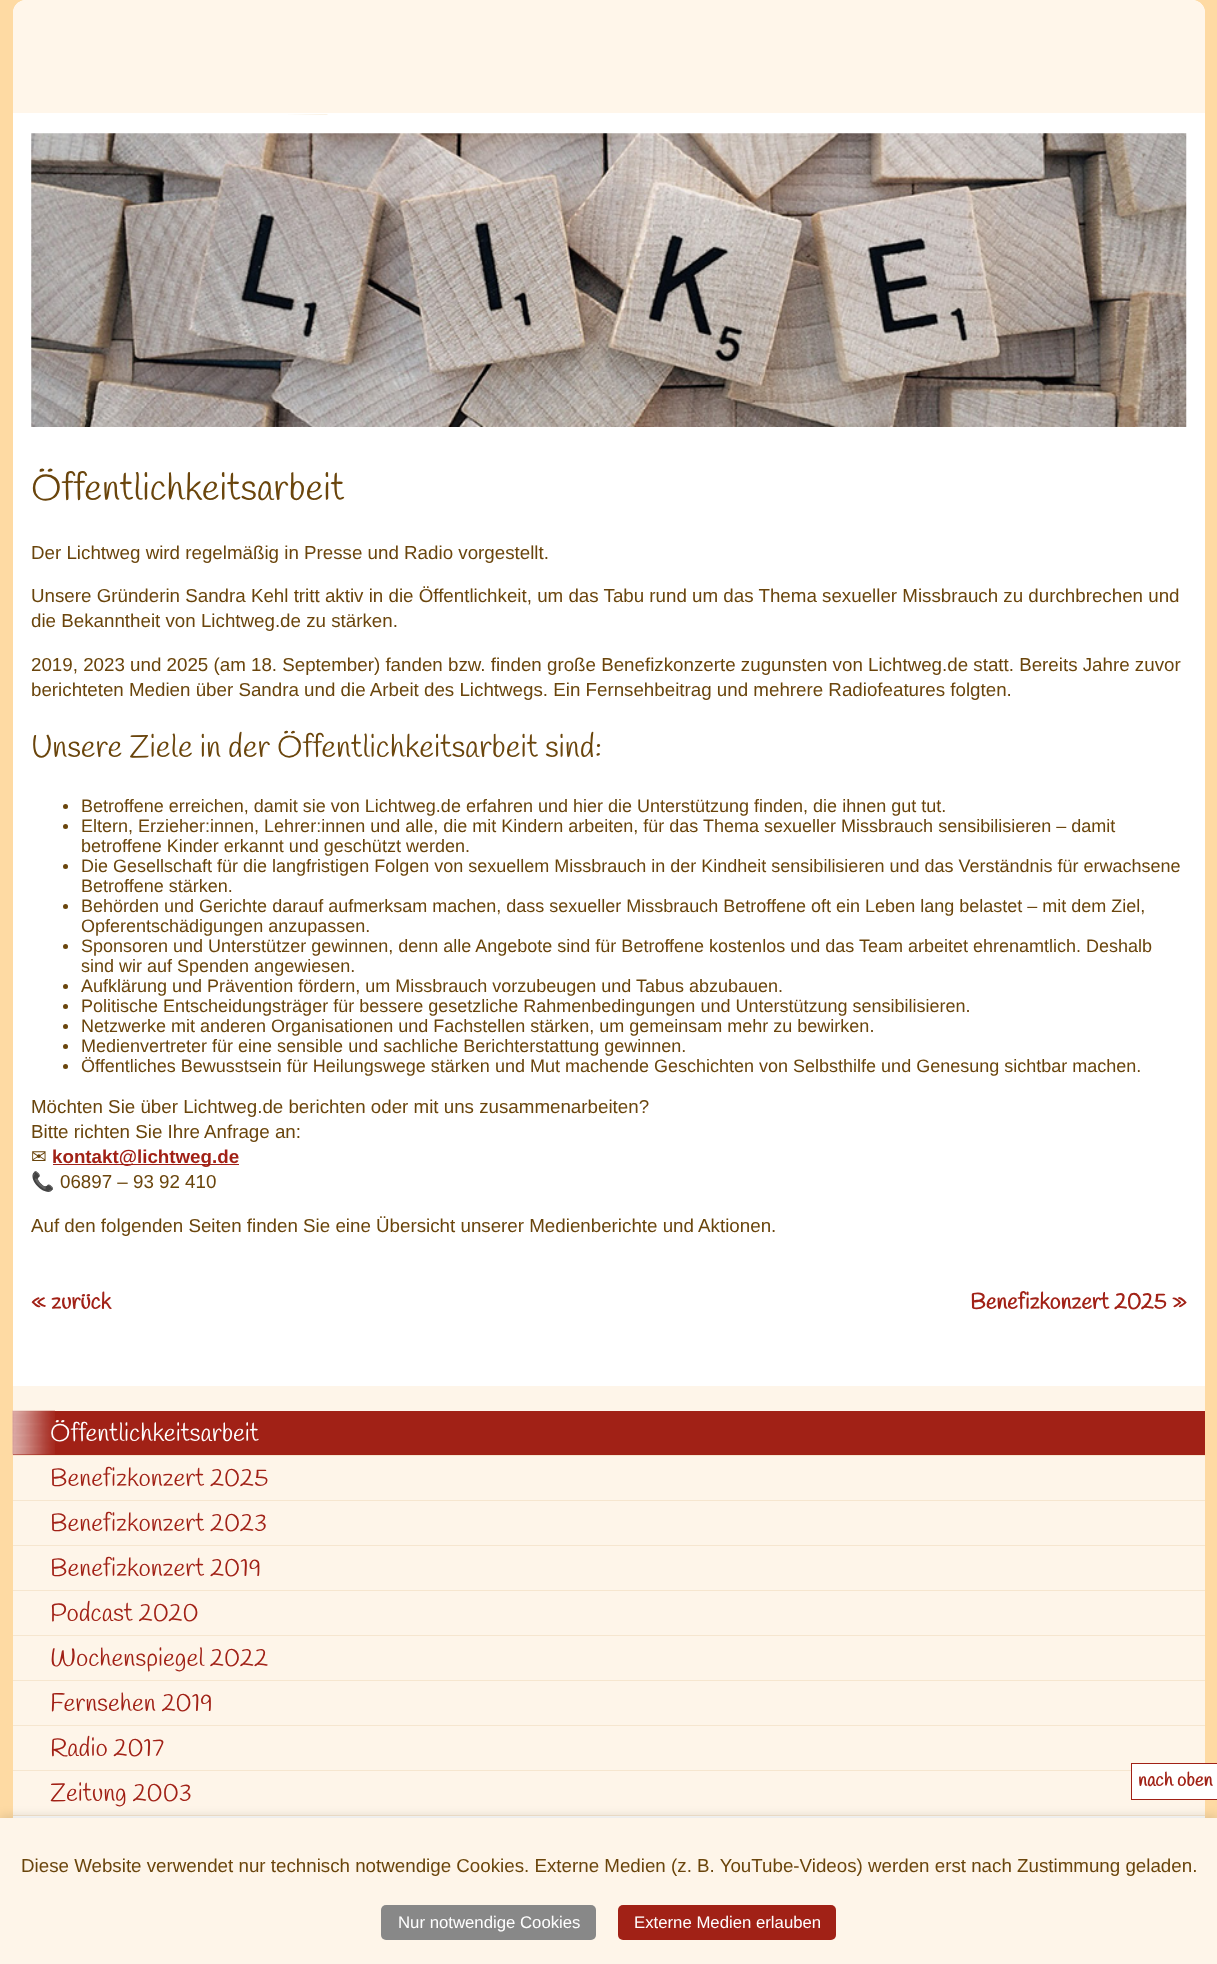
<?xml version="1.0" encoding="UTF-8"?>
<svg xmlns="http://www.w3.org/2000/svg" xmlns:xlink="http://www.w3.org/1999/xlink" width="1217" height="1964">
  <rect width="100%" height="100%" fill="#fedaa3" />
  <rect x="13" width="1192" height="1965" rx="13" fill="#ffffff" />
  <path d="M 26 0 h 1166 c 7 0 13 6 13 13 v 100 h -1192 v -100 c 0 -7 6 -13 13 -13 z" fill="#fff6ea" />
  <image x="288" y="114" width="40" height="1" xlink:href="image1.png" />
  <image x="31" y="133" width="1156" height="294" xlink:href="image2.png" />
  <circle cx="65.5" cy="806.5" r="2.5" fill="#6a450c" />
  <circle cx="65.5" cy="826.5" r="2.5" fill="#6a450c" />
  <circle cx="65.5" cy="866.5" r="2.5" fill="#6a450c" />
  <circle cx="65.5" cy="906.5" r="2.5" fill="#6a450c" />
  <circle cx="65.5" cy="946.5" r="2.5" fill="#6a450c" />
  <circle cx="65.5" cy="986.5" r="2.5" fill="#6a450c" />
  <circle cx="65.5" cy="1006.5" r="2.5" fill="#6a450c" />
  <circle cx="65.5" cy="1026.5" r="2.5" fill="#6a450c" />
  <circle cx="65.5" cy="1046.5" r="2.5" fill="#6a450c" />
  <circle cx="65.5" cy="1066.5" r="2.5" fill="#6a450c" />
  <rect x="53" y="1164" width="186" height="1" fill="#a12116" />
  <rect x="13" y="1386" width="1192" height="429" fill="#fef5e9" />
  <rect x="13" y="1455" width="1192" height="1" fill="#f6e6cf" />
  <rect x="13" y="1411" width="1192" height="44" fill="#a12116" />
  <image x="12" y="1410" width="43" height="45" xlink:href="image3.png" />
  <rect x="13" y="1500" width="1192" height="1" fill="#f6e6cf" />
  <rect x="13" y="1545" width="1192" height="1" fill="#f6e6cf" />
  <rect x="13" y="1590" width="1192" height="1" fill="#f6e6cf" />
  <rect x="13" y="1635" width="1192" height="1" fill="#f6e6cf" />
  <rect x="13" y="1680" width="1192" height="1" fill="#f6e6cf" />
  <rect x="13" y="1725" width="1192" height="1" fill="#f6e6cf" />
  <rect x="13" y="1770" width="1118" height="1" fill="#f6e6cf" />
  <rect x="13" y="1815" width="1192" height="1" fill="#f6e6cf" />
  <rect x="1132" y="1764" width="85" height="35" fill="#ffffff" />
  <rect x="1131" y="1763" width="86" height="1" fill="#a12116" />
  <rect y="1815" width="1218" height="148" fill="#000000" fill-opacity="0.1" filter="blur(5px)" />
  <rect x="1131" y="1799" width="86" height="1" fill="#a12116" />
  <rect x="1131" y="1763" width="1" height="37" fill="#a12116" />
  <rect y="1818" width="1217" height="146" fill="#fef5e9" />
  <rect x="381" y="1905" width="215" height="35" rx="5" fill="#888888" />
  <rect x="618" y="1905" width="218" height="35" rx="5" fill="#a12116" />
  <text x="31" y="500" style="font-family: Handlee; font-size: 37.5px; fill: #6a450c">Öffentlichkeitsarbeit</text>
  <text x="31" y="559" style="font-family: Liberation Sans; font-size: 18.75px; fill: #6a450c">Der Lichtweg wird regelmäßig in Presse und Radio vorgestellt.</text>
  <text x="31" y="602" style="font-family: Liberation Sans; font-size: 18.75px; fill: #6a450c">Unsere Gründerin Sandra Kehl tritt aktiv in die Öffentlichkeit, um das Tabu rund um das Thema sexueller Missbrauch zu durchbrechen und</text>
  <text x="31" y="627" style="font-family: Liberation Sans; font-size: 18.75px; fill: #6a450c">die Bekanntheit von Lichtweg.de zu stärken.</text>
  <text x="31" y="671" style="font-family: Liberation Sans; font-size: 18.75px; fill: #6a450c">2019, 2023 und 2025 (am 18. September) fanden bzw. finden große Benefizkonzerte zugunsten von Lichtweg.de statt. Bereits Jahre zuvor</text>
  <text x="31" y="696" style="font-family: Liberation Sans; font-size: 18.75px; fill: #6a450c">berichteten Medien über Sandra und die Arbeit des Lichtwegs. Ein Fernsehbeitrag und mehrere Radiofeatures folgten.</text>
  <text x="31" y="757" style="font-family: Handlee; font-size: 31.25px; fill: #6a450c">Unsere Ziele in der Öffentlichkeitsarbeit sind:</text>
  <text x="81" y="812" style="font-family: Liberation Sans; font-size: 18px; fill: #6a450c">Betroffene erreichen, damit sie von Lichtweg.de erfahren und hier die Unterstützung finden, die ihnen gut tut.</text>
  <text x="81" y="832" style="font-family: Liberation Sans; font-size: 18px; fill: #6a450c">Eltern, Erzieher:innen, Lehrer:innen und alle, die mit Kindern arbeiten, für das Thema sexueller Missbrauch sensibilisieren – damit</text>
  <text x="81" y="852" style="font-family: Liberation Sans; font-size: 18px; fill: #6a450c">betroffene Kinder erkannt und geschützt werden.</text>
  <text x="81" y="872" style="font-family: Liberation Sans; font-size: 18px; fill: #6a450c">Die Gesellschaft für die langfristigen Folgen von sexuellem Missbrauch in der Kindheit sensibilisieren und das Verständnis für erwachsene</text>
  <text x="81" y="892" style="font-family: Liberation Sans; font-size: 18px; fill: #6a450c">Betroffene stärken.</text>
  <text x="81" y="912" style="font-family: Liberation Sans; font-size: 18px; fill: #6a450c">Behörden und Gerichte darauf aufmerksam machen, dass sexueller Missbrauch Betroffene oft ein Leben lang belastet – mit dem Ziel,</text>
  <text x="81" y="932" style="font-family: Liberation Sans; font-size: 18px; fill: #6a450c">Opferentschädigungen anzupassen.</text>
  <text x="81" y="952" style="font-family: Liberation Sans; font-size: 18px; fill: #6a450c">Sponsoren und Unterstützer gewinnen, denn alle Angebote sind für Betroffene kostenlos und das Team arbeitet ehrenamtlich. Deshalb</text>
  <text x="81" y="972" style="font-family: Liberation Sans; font-size: 18px; fill: #6a450c">sind wir auf Spenden angewiesen.</text>
  <text x="81" y="992" style="font-family: Liberation Sans; font-size: 18px; fill: #6a450c">Aufklärung und Prävention fördern, um Missbrauch vorzubeugen und Tabus abzubauen.</text>
  <text x="81" y="1012" style="font-family: Liberation Sans; font-size: 18px; fill: #6a450c">Politische Entscheidungsträger für bessere gesetzliche Rahmenbedingungen und Unterstützung sensibilisieren.</text>
  <text x="81" y="1032" style="font-family: Liberation Sans; font-size: 18px; fill: #6a450c">Netzwerke mit anderen Organisationen und Fachstellen stärken, um gemeinsam mehr zu bewirken.</text>
  <text x="81" y="1052" style="font-family: Liberation Sans; font-size: 18px; fill: #6a450c">Medienvertreter für eine sensible und sachliche Berichterstattung gewinnen.</text>
  <text x="81" y="1072" style="font-family: Liberation Sans; font-size: 18px; fill: #6a450c">Öffentliches Bewusstsein für Heilungswege stärken und Mut machende Geschichten von Selbsthilfe und Genesung sichtbar machen.</text>
  <text x="31" y="1113" style="font-family: Liberation Sans; font-size: 18.75px; fill: #6a450c">Möchten Sie über Lichtweg.de berichten oder mit uns zusammenarbeiten?</text>
  <text x="31" y="1138" style="font-family: Liberation Sans; font-size: 18.75px; fill: #6a450c">Bitte richten Sie Ihre Anfrage an:</text>
  <text x="31" y="1163" style="font-family: DejaVu Sans; font-size: 18.75px; fill: #6a450c">✉</text>
  <text x="52" y="1163" style="font-family: Liberation Sans; font-size: 18.75px; font-weight: bold; fill: #a12116">kontakt@lichtweg.de</text>
  <text x="31" y="1188" style="font-family: Noto Color Emoji; font-size: 18.75px; fill: #6a450c">📞</text>
  <text x="60" y="1188" style="font-family: Liberation Sans; font-size: 18.75px; fill: #6a450c">06897 – 93 92 410</text>
  <text x="31" y="1232" style="font-family: Liberation Sans; font-size: 18.75px; fill: #6a450c">Auf den folgenden Seiten finden Sie eine Übersicht unserer Medienberichte und Aktionen.</text>
  <text x="31" y="1309" style="font-family: Handlee; font-size: 22.5px; font-weight: bold; fill: #a12116">« zurück</text>
  <text x="970" y="1309" style="font-family: Handlee; font-size: 22.5px; font-weight: bold; fill: #a12116">Benefizkonzert 2025 »</text>
  <text x="50" y="1441" style="font-family: Handlee; font-size: 25px; fill: #ffffff">Öffentlichkeitsarbeit</text>
  <text x="50" y="1486" style="font-family: Handlee; font-size: 25px; fill: #a12116">Benefizkonzert 2025</text>
  <text x="50" y="1531" style="font-family: Handlee; font-size: 25px; fill: #a12116">Benefizkonzert 2023</text>
  <text x="50" y="1576" style="font-family: Handlee; font-size: 25px; fill: #a12116">Benefizkonzert 2019</text>
  <text x="50" y="1621" style="font-family: Handlee; font-size: 25px; fill: #a12116">Podcast 2020</text>
  <text x="50" y="1666" style="font-family: Handlee; font-size: 25px; fill: #a12116">Wochenspiegel 2022</text>
  <text x="50" y="1711" style="font-family: Handlee; font-size: 25px; fill: #a12116">Fernsehen 2019</text>
  <text x="50" y="1756" style="font-family: Handlee; font-size: 25px; fill: #a12116">Radio 2017</text>
  <text x="50" y="1801" style="font-family: Handlee; font-size: 25px; fill: #a12116">Zeitung 2003</text>
  <text x="1138" y="1786" style="font-family: Handlee; font-size: 18.75px; font-weight: bold; fill: #a12116">nach oben</text>
  <text x="21" y="1872" style="font-family: Liberation Sans; font-size: 18.75px; fill: #6a450c">Diese Website verwendet nur technisch notwendige Cookies. Externe Medien (z. B. YouTube-Videos) werden erst nach Zustimmung geladen.</text>
  <text x="398" y="1928" style="font-family: Liberation Sans; font-size: 16.75px; fill: #ffffff">Nur notwendige Cookies</text>
  <text x="634" y="1928" style="font-family: Liberation Sans; font-size: 16.75px; fill: #ffffff">Externe Medien erlauben</text>
</svg>
